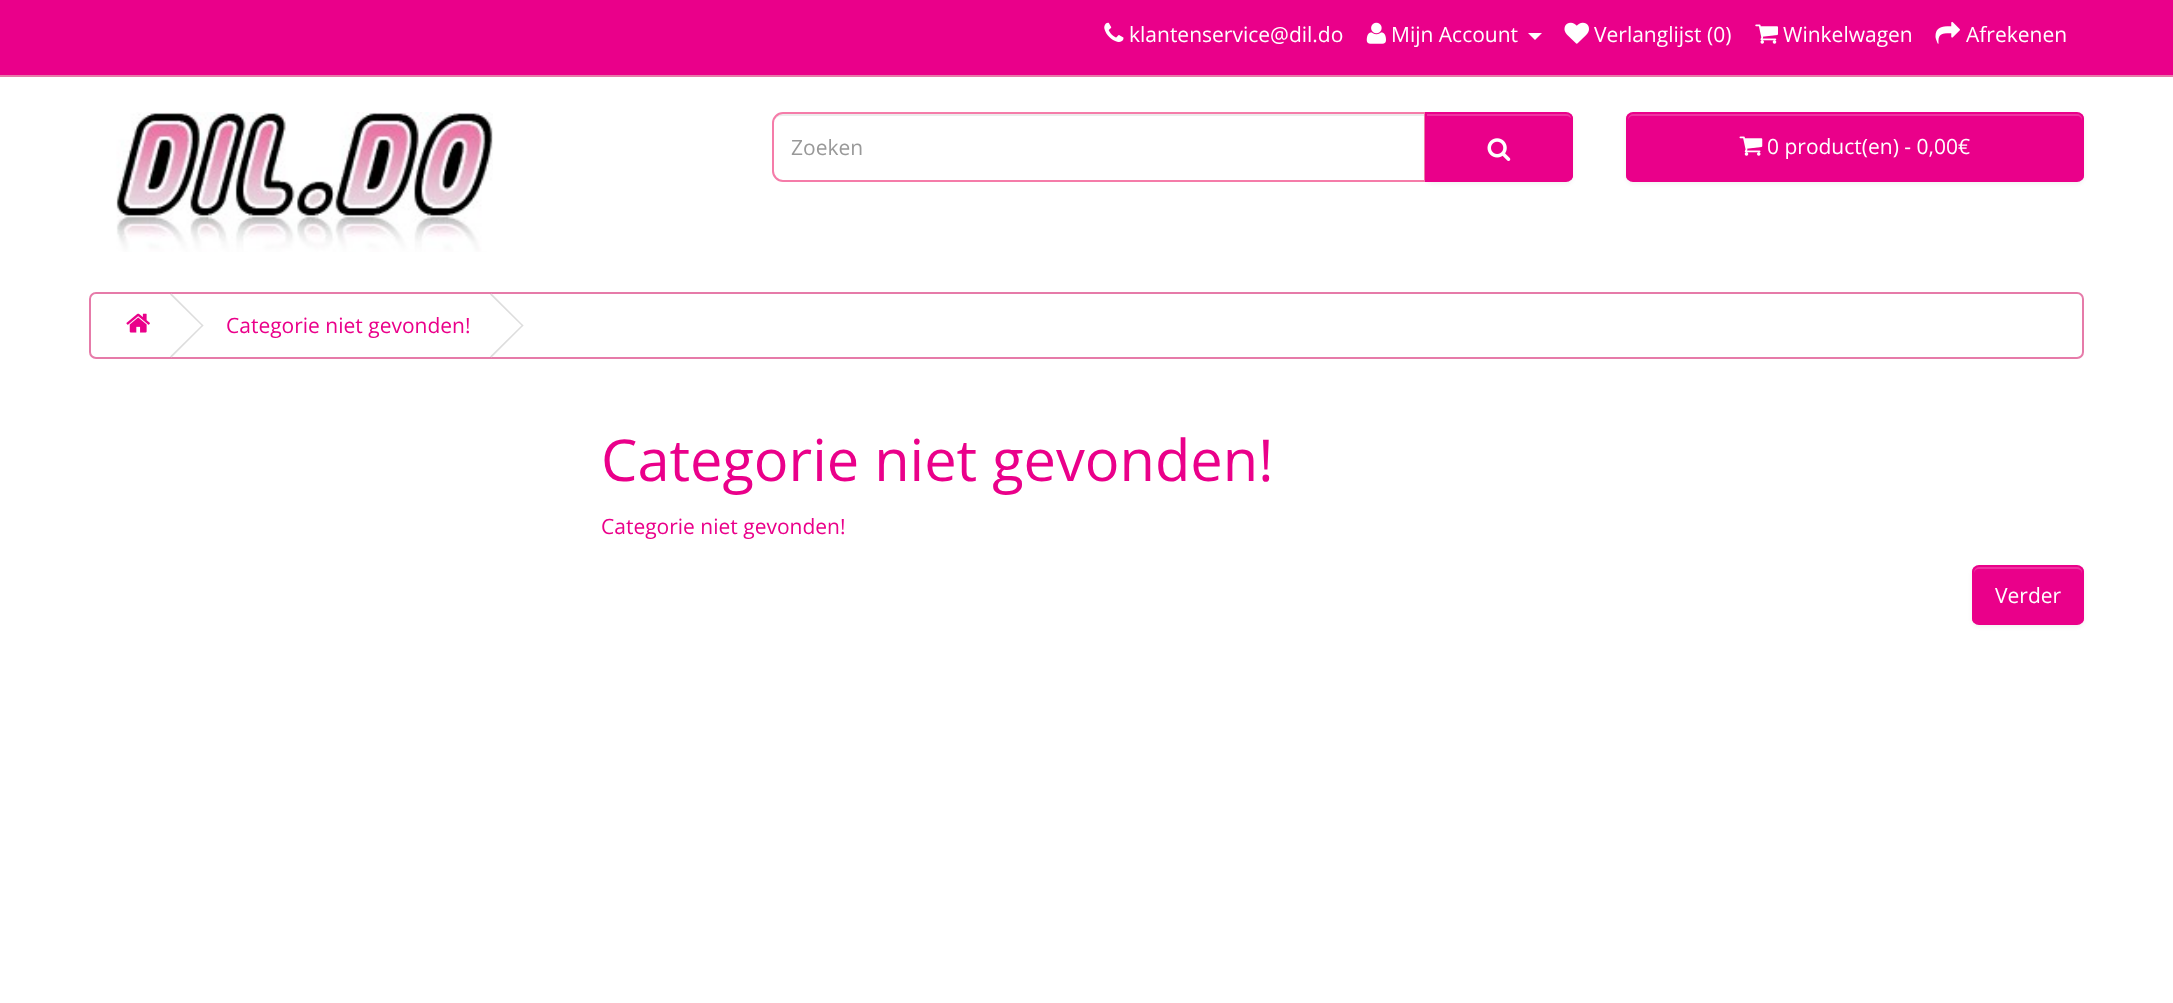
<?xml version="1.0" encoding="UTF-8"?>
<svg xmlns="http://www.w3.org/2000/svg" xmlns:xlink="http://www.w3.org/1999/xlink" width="2173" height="1003">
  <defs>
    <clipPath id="clip1"><path d="M 1425 112 h 141 c 4 0 7 3 7 7 v 56 c 0 4 -3 7 -7 7 h -141 z" /></clipPath>
    <clipPath id="clip2"><rect x="1626" y="112" width="458" height="70" rx="7" /></clipPath>
    <clipPath id="clip3"><rect x="1972" y="565" width="112" height="60" rx="7" /></clipPath>
  </defs>
  <rect width="100%" height="100%" fill="#ffffff" />
  <rect width="2173" height="75" fill="#ea008a" />
  <rect y="75" width="2173" height="2" fill="#e67ba9" />
  <image x="1104" y="22" width="20" height="20" xlink:href="image1.png" />
  <image x="1366" y="22" width="20" height="22" xlink:href="image2.png" />
  <path d="M 1528 33 h 14 l -7 7 z" fill="#ffffff" />
  <image x="1564" y="22" width="25" height="22" xlink:href="image3.png" />
  <image x="1755" y="24" width="23" height="20" xlink:href="image4.png" />
  <image x="1935" y="21" width="25" height="23" xlink:href="image5.png" />
  <image x="116" y="112" width="377" height="140" xlink:href="image6.png" />
  <path d="M 782 116 h 642 v 64 h 1 v -66 h -642 c -6 0 -9 5 -9 10 c 0 -5 3 -8 8 -8 z" fill="#ececec" />
  <path d="M 783 113 h 642 v 68 h -642 c -5.5 0 -10 -4.5 -10 -10 v -48 c 0 -5.5 4.5 -10 10 -10 z" fill="none" stroke="#f57ca9" stroke-width="2" />
  <rect x="1425" y="114" width="148" height="70" rx="7" fill="#000000" fill-opacity="0.05" filter="blur(2px)" />
  <g clip-path="url(#clip1)">
    <rect x="1427" y="114" width="146" height="66" fill="#ea008a" />
  </g>
  <path d="M 1426 116 h 140 c 3 0 6 2 6 5 v -2 c 0 -3 -2 -5 -5 -5 h -141 z" fill="#ee33a1" />
  <path d="M 1426 113 h 140 c 3.5 0 6 2.5 6 6 v 56 c 0 3.5 -2.5 6 -6 6 h -140 z" fill="none" stroke="#ea008a" stroke-width="2" />
  <image x="1487" y="138" width="24" height="23" xlink:href="image7.png" />
  <rect x="1626" y="114" width="458" height="70" rx="7" fill="#000000" fill-opacity="0.05" filter="blur(2px)" />
  <g clip-path="url(#clip2)">
    <rect x="1626" y="114" width="458" height="66" fill="#ea008a" />
  </g>
  <path d="M 1633 116 h 444 c 3 0 5 2 5 5 v 57 c 1 -1 1 -2 1 -3 v -56 c 0 -3 -2 -5 -5 -5 h -445 c -3 0 -5 2 -5 5 v 2 c 0 -3 2 -5 5 -5 z" fill="#ee33a1" />
  <rect x="1627" y="113" width="456" height="68" rx="6" fill="none" stroke="#ea008a" stroke-width="2" />
  <image x="1739" y="136" width="24" height="20" xlink:href="image8.png" />
  <rect x="90" y="293" width="1993" height="65" rx="6" fill="none" stroke="#e67ba9" stroke-width="2" />
  <image x="126" y="313" width="24" height="20" xlink:href="image9.png" />
  <path d="M 170 294.5 l 1.5 -1 l 32 32 l -1 1 z" fill="#dddddd" />
  <path d="M 170 356.5 l 32.5 -32 l 1 1 l -32 32 z" fill="#dddddd" />
  <path d="M 490 294.5 l 1.5 -1 l 32 32 l -1 1 z" fill="#dddddd" />
  <path d="M 490 356.5 l 32.5 -32 l 1 1 l -32 32 z" fill="#dddddd" />
  <rect x="1972" y="567" width="112" height="60" rx="7" fill="#000000" fill-opacity="0.05" filter="blur(2px)" />
  <g clip-path="url(#clip3)">
    <rect x="1972" y="567" width="112" height="56" fill="#ea008a" />
  </g>
  <path d="M 1979 569 h 98 c 7 0 5 9 5 13 v 39 c 1 -1 1 -2 1 -3 v -46 c 0 -3 -2 -5 -5 -5 h -99 c -3 0 -5 2 -5 5 v 2 c 0 -3 2 -5 5 -5 z" fill="#ee33a1" />
  <rect x="1973" y="566" width="110" height="58" rx="6" fill="none" stroke="#ea008a" stroke-width="2" />
  <text x="1129" y="42" style="font-family: Open Sans; font-size: 21px; fill: #ffffff">klantenservice@dil.do</text>
  <text x="1391" y="42" style="font-family: Open Sans; font-size: 21px; fill: #ffffff">Mijn Account</text>
  <text x="1594" y="42" style="font-family: Open Sans; font-size: 21px; fill: #ffffff">Verlanglijst (0)</text>
  <text x="1783" y="42" style="font-family: Open Sans; font-size: 21px; fill: #ffffff">Winkelwagen</text>
  <text x="1966" y="42" style="font-family: Open Sans; font-size: 21px; fill: #ffffff">Afrekenen</text>
  <text x="791" y="155" style="font-family: Open Sans; font-size: 21px; fill: #999999">Zoeken</text>
  <text x="1767" y="154" style="font-family: Open Sans; font-size: 21px; fill: #ffffff">0 product(en) - 0,00€</text>
  <text x="226" y="333" style="font-family: Open Sans; font-size: 21px; fill: #ea008a">Categorie niet gevonden!</text>
  <text x="601" y="481" style="font-family: Open Sans; font-size: 57.75px; fill: #ea008a">Categorie niet gevonden!</text>
  <text x="601" y="534" style="font-family: Open Sans; font-size: 21px; fill: #ea008a">Categorie niet gevonden!</text>
  <text x="1995" y="603" style="font-family: Open Sans; font-size: 21px; fill: #ffffff">Verder</text>
</svg>
